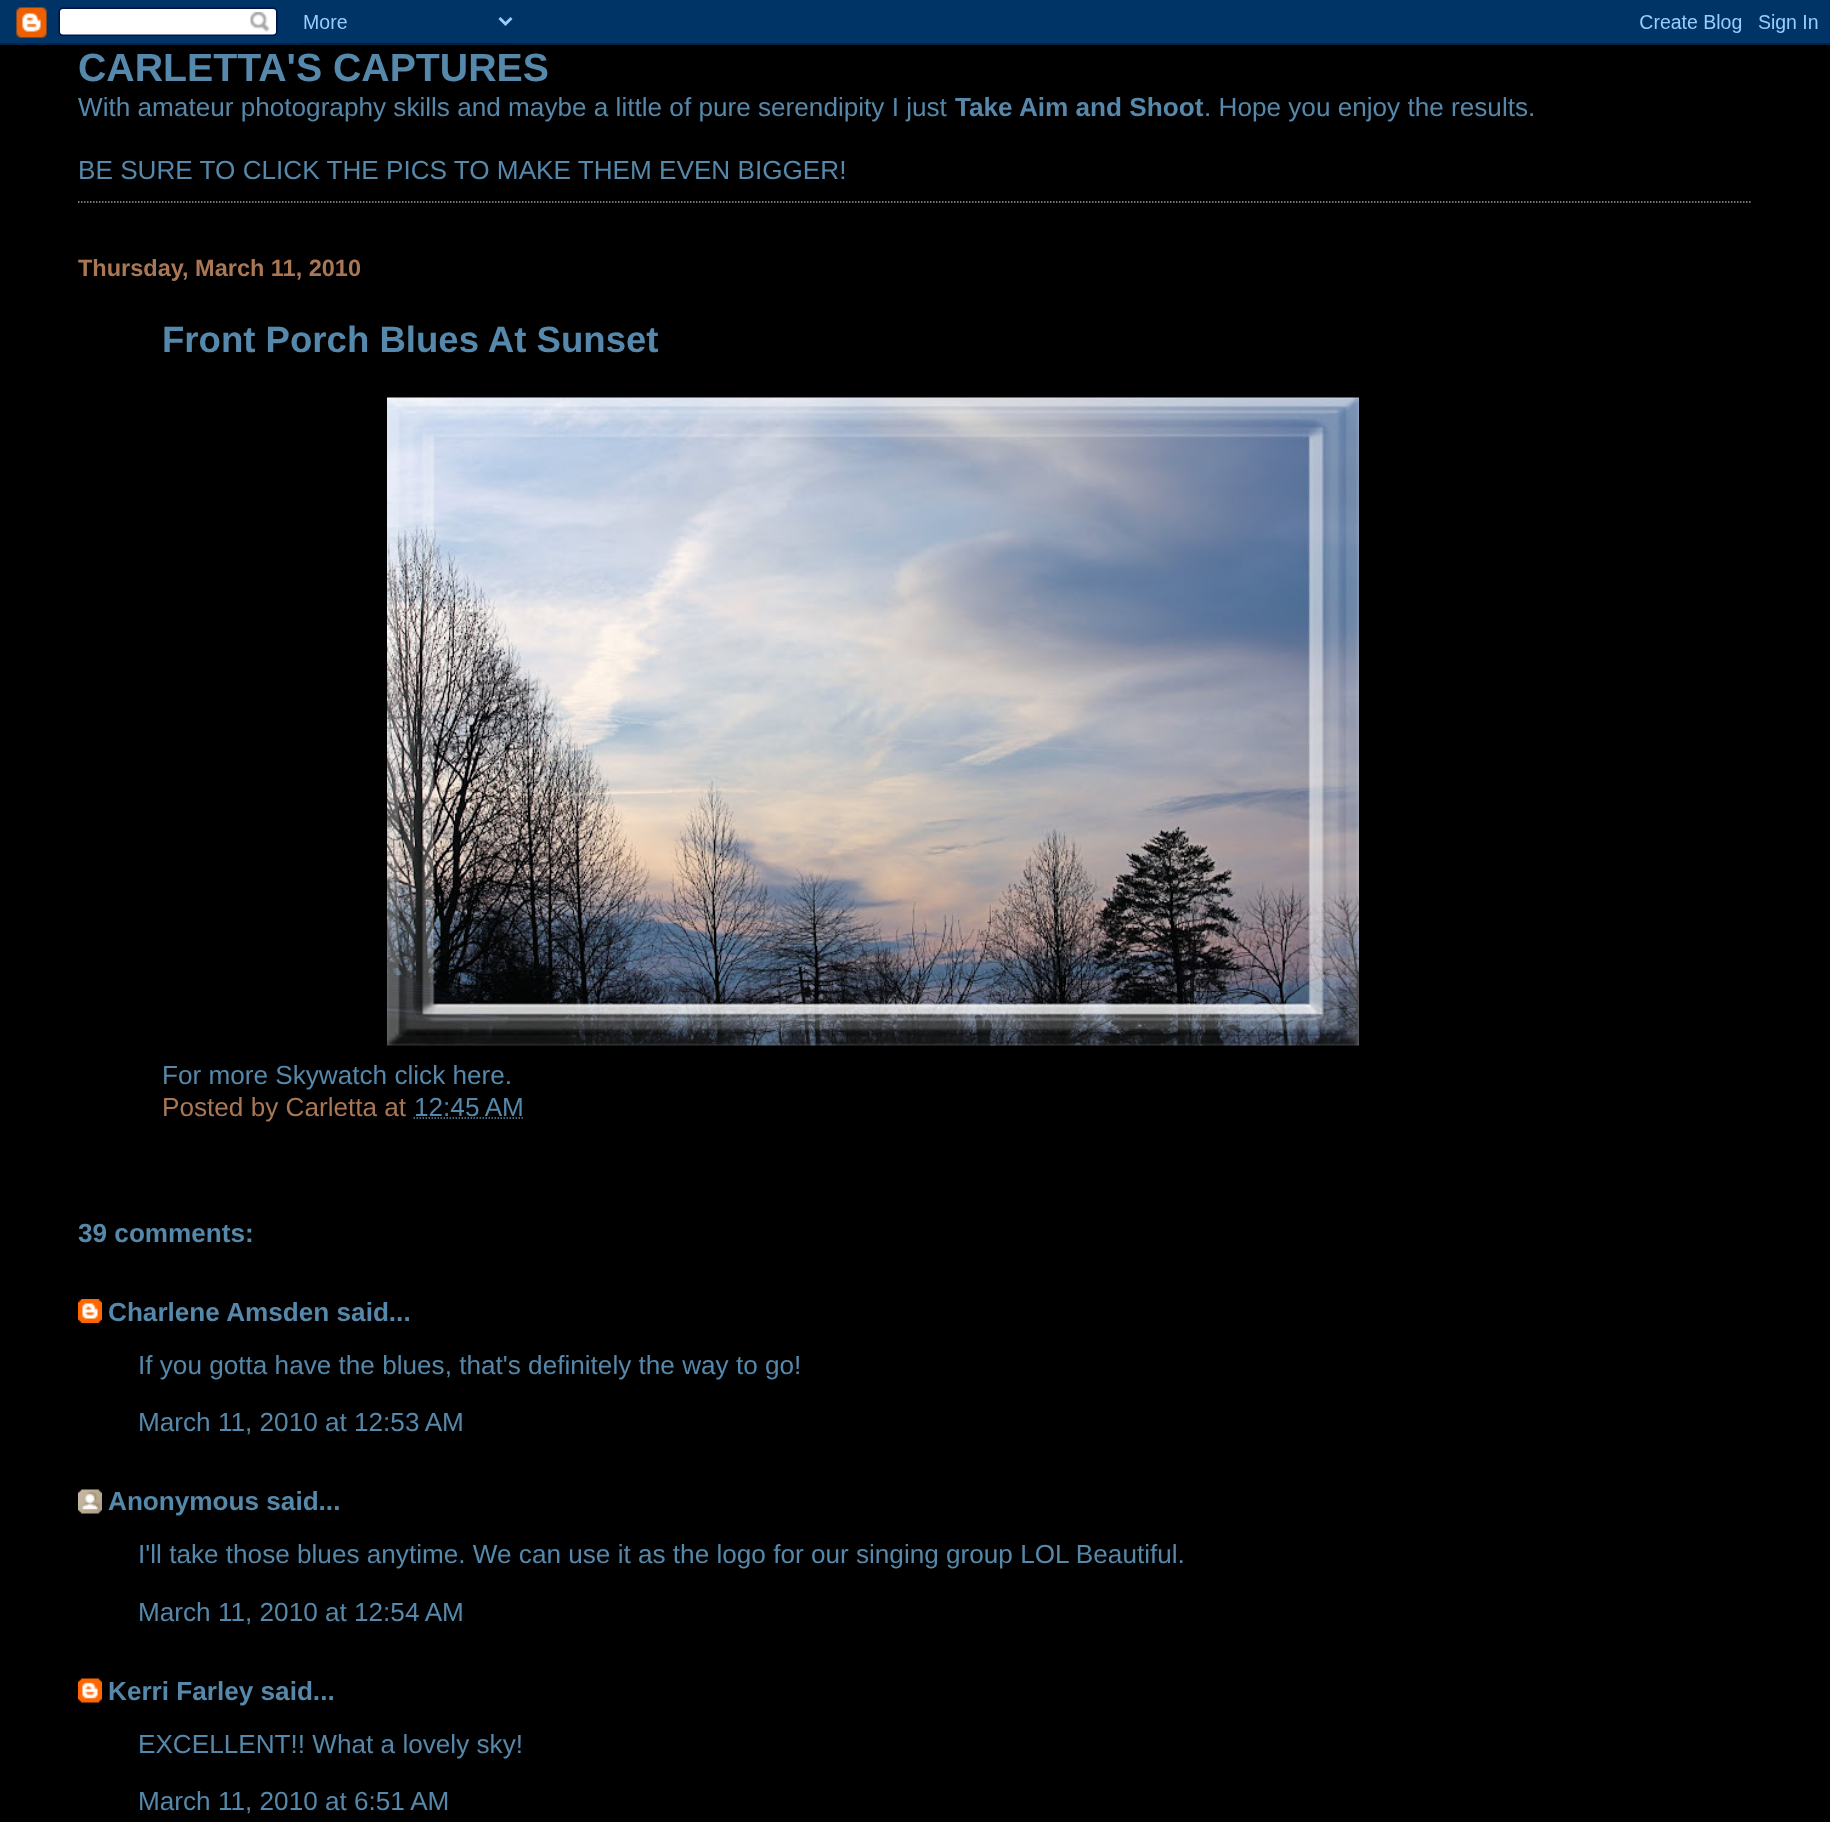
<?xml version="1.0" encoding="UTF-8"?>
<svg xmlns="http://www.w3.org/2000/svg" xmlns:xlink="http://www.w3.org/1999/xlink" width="1830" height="1822">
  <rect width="100%" height="100%" fill="#000000" />
  <image x="0" y="0" width="1830" height="45" xlink:href="image1.png" />
  <path d="M 78 202 h 1674" fill="none" stroke="#999999" stroke-width="1.5" stroke-dasharray="1.5 1.5" />
  <image x="387" y="397" width="972" height="649" xlink:href="image2.png" />
  <path d="M 413.5 1118 h 110" fill="none" stroke="#5588aa" stroke-width="1.5" stroke-dasharray="1.5 1.5" />
  <image x="78" y="1299" width="24" height="24" xlink:href="image3.png" />
  <image x="78" y="1489" width="24" height="25" xlink:href="image4.png" />
  <image x="78" y="1678" width="24" height="25" xlink:href="image5.png" />
  <text x="78" y="81" style="font-family: Liberation Sans; font-size: 39.25px; font-weight: bold; fill: #5588aa">CARLETTA'S CAPTURES</text>
  <text x="78" y="116" style="font-family: Liberation Sans; font-size: 26.15px; fill: #5588aa">With amateur photography skills and maybe a little of pure serendipity I just</text>
  <text x="955" y="116" style="font-family: Liberation Sans; font-size: 26.15px; font-weight: bold; fill: #5588aa">Take Aim and Shoot</text>
  <text x="1204" y="116" style="font-family: Liberation Sans; font-size: 26.15px; fill: #5588aa">. Hope you enjoy the results.</text>
  <text x="78" y="179" style="font-family: Liberation Sans; font-size: 26.15px; fill: #5588aa">BE SURE TO CLICK THE PICS TO MAKE THEM EVEN BIGGER!</text>
  <text x="78" y="276" style="font-family: Liberation Sans; font-size: 23.5px; font-weight: bold; fill: #aa7755">Thursday, March 11, 2010</text>
  <text x="162" y="352" style="font-family: Liberation Sans; font-size: 36.6px; font-weight: bold; fill: #5588aa">Front Porch Blues At Sunset</text>
  <text x="162" y="1084" style="font-family: Liberation Sans; font-size: 26.15px; fill: #5588aa">For more Skywatch click here.</text>
  <text x="162" y="1116" style="font-family: Liberation Sans; font-size: 26.15px; fill: #aa7755">Posted by Carletta at</text>
  <text x="414" y="1116" style="font-family: Liberation Sans; font-size: 26.15px; fill: #5588aa">12:45 AM</text>
  <text x="78" y="1242" style="font-family: Liberation Sans; font-size: 26.15px; font-weight: bold; fill: #5588aa">39 comments:</text>
  <text x="108" y="1321" style="font-family: Liberation Sans; font-size: 26.15px; font-weight: bold; fill: #5588aa">Charlene Amsden said...</text>
  <text x="138" y="1374" style="font-family: Liberation Sans; font-size: 26.15px; fill: #5588aa">If you gotta have the blues, that's definitely the way to go!</text>
  <text x="138" y="1431" style="font-family: Liberation Sans; font-size: 26.15px; fill: #5588aa">March 11, 2010 at 12:53 AM</text>
  <text x="108" y="1510" style="font-family: Liberation Sans; font-size: 26.15px; font-weight: bold; fill: #5588aa">Anonymous said...</text>
  <text x="138" y="1563" style="font-family: Liberation Sans; font-size: 26.15px; fill: #5588aa">I'll take those blues anytime. We can use it as the logo for our singing group LOL Beautiful.</text>
  <text x="138" y="1621" style="font-family: Liberation Sans; font-size: 26.15px; fill: #5588aa">March 11, 2010 at 12:54 AM</text>
  <text x="108" y="1700" style="font-family: Liberation Sans; font-size: 26.15px; font-weight: bold; fill: #5588aa">Kerri Farley said...</text>
  <text x="138" y="1753" style="font-family: Liberation Sans; font-size: 26.15px; fill: #5588aa">EXCELLENT!! What a lovely sky!</text>
  <text x="138" y="1810" style="font-family: Liberation Sans; font-size: 26.15px; fill: #5588aa">March 11, 2010 at 6:51 AM</text>
</svg>
